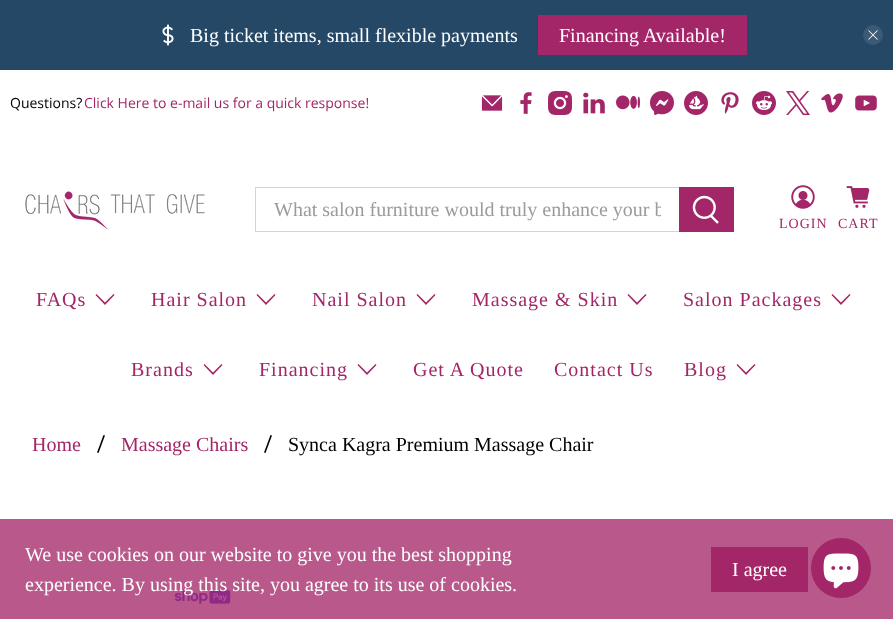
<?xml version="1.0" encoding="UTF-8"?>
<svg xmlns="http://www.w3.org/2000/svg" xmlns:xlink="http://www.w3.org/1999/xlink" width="893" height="619">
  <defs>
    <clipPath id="clip1"><rect x="274" y="198" width="387" height="23" /></clipPath>
  </defs>
  <rect width="100%" height="100%" fill="#ffffff" />
  <rect width="893" height="70" fill="#244866" />
  <image x="162" y="24" width="12" height="22" xlink:href="image1.png" />
  <rect x="538" y="15" width="209" height="40" fill="#a32668" />
  <circle cx="873" cy="35" r="10" fill="#3a5a75" />
  <image x="868" y="30" width="10" height="10" xlink:href="image2.png" />
  <image x="481" y="95" width="22" height="16" xlink:href="image3.png" />
  <image x="520" y="92" width="12" height="22" xlink:href="image4.png" />
  <image x="548" y="91" width="24" height="24" xlink:href="image5.png" />
  <image x="583" y="92" width="22" height="22" xlink:href="image6.png" />
  <image x="616" y="95" width="24" height="15" xlink:href="image7.png" />
  <image x="650" y="91" width="24" height="24" xlink:href="image8.png" />
  <image x="684" y="91" width="24" height="24" xlink:href="image9.png" />
  <image x="721" y="92" width="18" height="22" xlink:href="image10.png" />
  <image x="752" y="91" width="24" height="24" xlink:href="image11.png" />
  <image x="786" y="91" width="24" height="24" xlink:href="image12.png" />
  <image x="821" y="93" width="22" height="20" xlink:href="image13.png" />
  <image x="855" y="95" width="22" height="16" xlink:href="image14.png" />
  <image x="25" y="191" width="180" height="39" xlink:href="image15.png" />
  <rect x="255.5" y="187.5" width="424" height="44" fill="none" stroke="#d3d3d3" />
  <rect x="679" y="187" width="55" height="45" fill="#a32668" />
  <image x="692" y="195" width="27" height="29" xlink:href="image16.png" />
  <image x="791" y="185" width="24" height="24" xlink:href="image17.png" />
  <image x="846" y="186" width="24" height="22" xlink:href="image18.png" />
  <path d="M 105 305 l -9.5 -10 l 1 -1 l 8.5 8.5 l 8.5 -8.5 l 1 1 z" fill="#a32668" />
  <path d="M 266 305 l -9.5 -10 l 1 -1 l 8.5 8.5 l 8.5 -8.5 l 1 1 z" fill="#a32668" />
  <path d="M 426 305 l -9.5 -10 l 1 -1 l 8.5 8.5 l 8.5 -8.5 l 1 1 z" fill="#a32668" />
  <path d="M 637 305 l -9.5 -10 l 1 -1 l 8.5 8.5 l 8.5 -8.5 l 1 1 z" fill="#a32668" />
  <path d="M 841 305 l -9.5 -10 l 1 -1 l 8.5 8.5 l 8.5 -8.5 l 1 1 z" fill="#a32668" />
  <path d="M 213 375 l -9.5 -10 l 1 -1 l 8.5 8.5 l 8.5 -8.5 l 1 1 z" fill="#a32668" />
  <path d="M 367 375 l -9.5 -10 l 1 -1 l 8.5 8.5 l 8.5 -8.5 l 1 1 z" fill="#a32668" />
  <path d="M 746 375 l -9.5 -10 l 1 -1 l 8.5 8.5 l 8.5 -8.5 l 1 1 z" fill="#a32668" />
  <path d="M 97 452.5 l 6.5 -17.5 l 1.5 0.5 l -6.5 17.5 z" fill="#000000" />
  <path d="M 264 452.5 l 6.5 -17.5 l 1.5 0.5 l -6.5 17.5 z" fill="#000000" />
  <image x="174" y="590" width="57" height="14" xlink:href="image19.png" />
  <rect y="519" width="893" height="100" fill="#a32668" fill-opacity="0.77" />
  <rect x="711" y="547" width="97" height="45" fill="#a32668" />
  <circle cx="841" cy="568" r="30" fill="#a32668" />
  <image x="823" y="553" width="36" height="36" xlink:href="image20.png" />
  <text x="190" y="42" style="font-family: Liberation Serif; font-size: 20px; fill: #ffffff">Big ticket items, small flexible payments</text>
  <text x="559" y="42" style="font-family: Liberation Serif; font-size: 20px; fill: #ffffff">Financing Available!</text>
  <text x="10" y="108" style="font-family: Open Sans; font-size: 14px; fill: #000000">Questions?</text>
  <text x="84" y="108" style="font-family: Open Sans; font-size: 14px; fill: #a32668">Click Here to e-mail us for a quick response!</text>
  <g clip-path="url(#clip1)">
    <text x="274" y="216" style="font-family: Liberation Serif; font-size: 20px; fill: #9b9b9b">What salon furniture would truly enhance your b</text>
  </g>
  <text x="779" y="228" style="font-family: Liberation Serif; font-size: 14px; letter-spacing: 1px; fill: #a32668">LOGIN</text>
  <text x="838" y="228" style="font-family: Liberation Serif; font-size: 14px; letter-spacing: 1px; fill: #a32668">CART</text>
  <text x="36" y="306" style="font-family: Liberation Serif; font-size: 20px; letter-spacing: 1px; fill: #a32668">FAQs</text>
  <text x="151" y="306" style="font-family: Liberation Serif; font-size: 20px; letter-spacing: 1px; fill: #a32668">Hair Salon</text>
  <text x="312" y="306" style="font-family: Liberation Serif; font-size: 20px; letter-spacing: 1px; fill: #a32668">Nail Salon</text>
  <text x="472" y="306" style="font-family: Liberation Serif; font-size: 20px; letter-spacing: 1px; fill: #a32668">Massage &amp; Skin</text>
  <text x="683" y="306" style="font-family: Liberation Serif; font-size: 20px; letter-spacing: 1px; fill: #a32668">Salon Packages</text>
  <text x="131" y="376" style="font-family: Liberation Serif; font-size: 20px; letter-spacing: 1px; fill: #a32668">Brands</text>
  <text x="259" y="376" style="font-family: Liberation Serif; font-size: 20px; letter-spacing: 1px; fill: #a32668">Financing</text>
  <text x="413" y="376" style="font-family: Liberation Serif; font-size: 20px; letter-spacing: 1px; fill: #a32668">Get A Quote</text>
  <text x="554" y="376" style="font-family: Liberation Serif; font-size: 20px; letter-spacing: 1px; fill: #a32668">Contact Us</text>
  <text x="684" y="376" style="font-family: Liberation Serif; font-size: 20px; letter-spacing: 1px; fill: #a32668">Blog</text>
  <text x="32" y="451" style="font-family: Liberation Serif; font-size: 20px; fill: #a32668">Home</text>
  <text x="121" y="451" style="font-family: Liberation Serif; font-size: 20px; fill: #a32668">Massage Chairs</text>
  <text x="288" y="451" style="font-family: Liberation Serif; font-size: 20px; fill: #000000">Synca Kagra Premium Massage Chair</text>
  <text x="25" y="561" style="font-family: Liberation Serif; font-size: 20px; fill: #ffffff">We use cookies on our website to give you the best shopping</text>
  <text x="25" y="591" style="font-family: Liberation Serif; font-size: 20px; fill: #ffffff">experience. By using this site, you agree to its use of cookies.</text>
  <text x="732" y="576" style="font-family: Liberation Serif; font-size: 20px; fill: #ffffff">I agree</text>
</svg>
